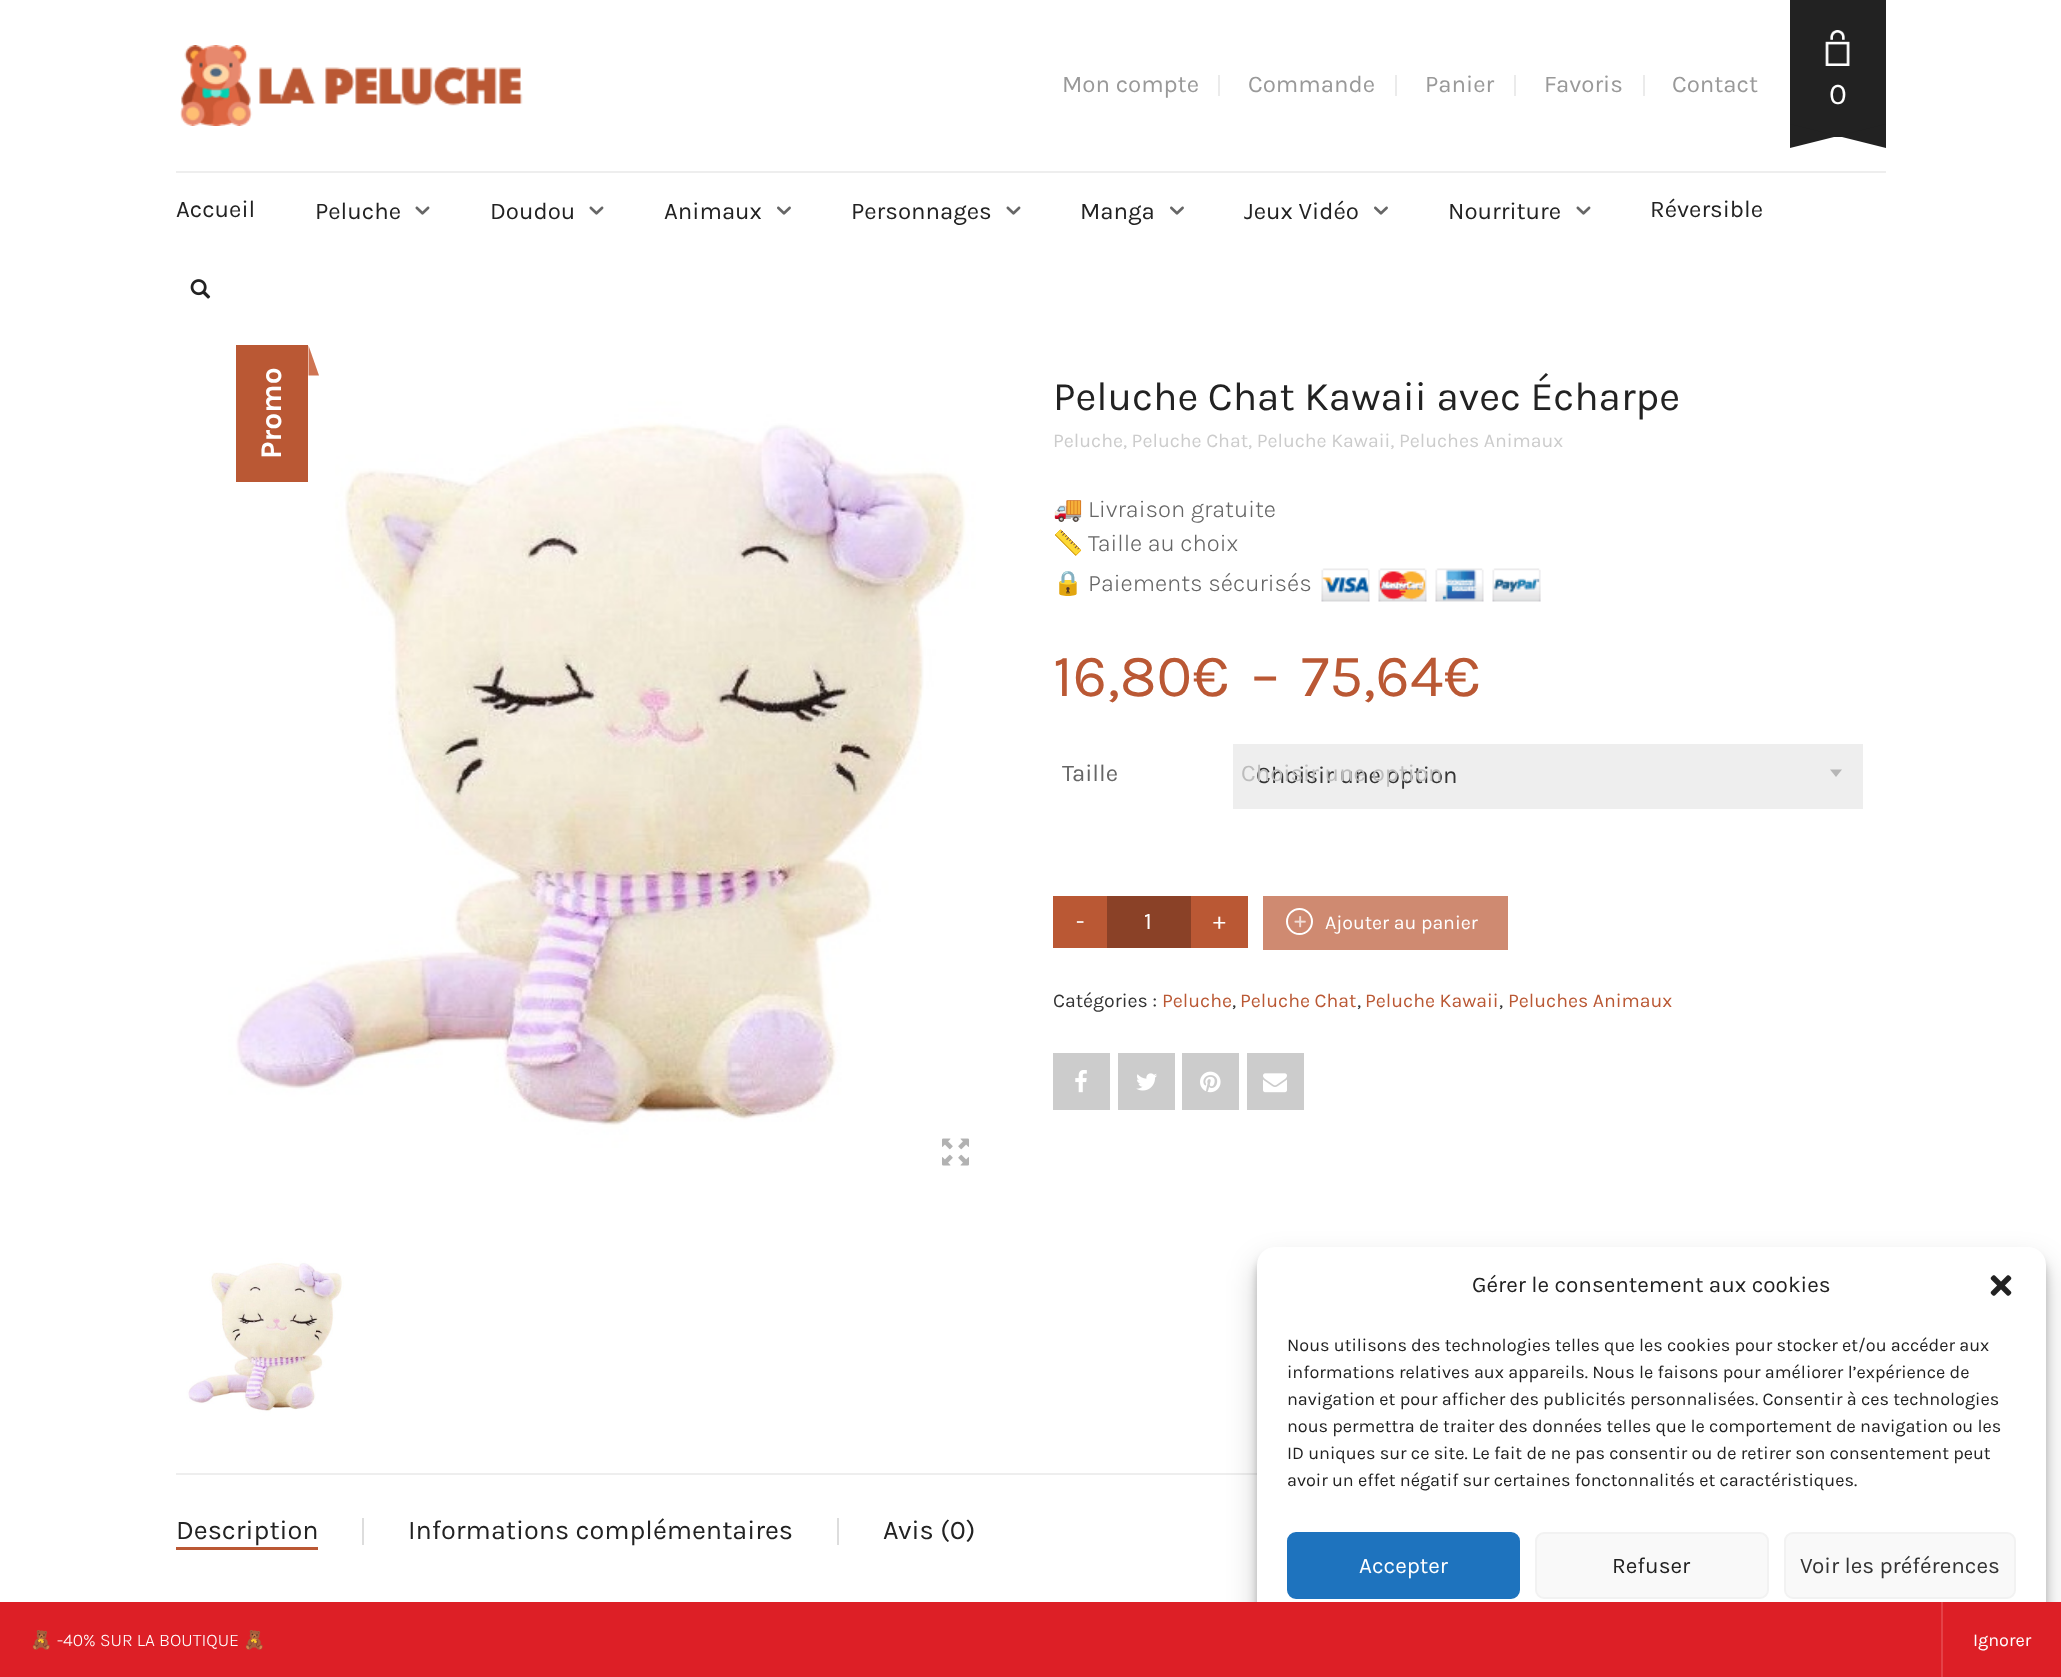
<?xml version="1.0" encoding="UTF-8"?>
<svg xmlns="http://www.w3.org/2000/svg" xmlns:xlink="http://www.w3.org/1999/xlink" width="2061" height="1677">
  <rect width="100%" height="100%" fill="#ffffff" />
  <image x="180" y="45" width="343" height="81" xlink:href="image1.png" />
  <rect x="1218" y="75" width="2" height="21" fill="#ebebeb" />
  <rect x="1395" y="75" width="2" height="21" fill="#ebebeb" />
  <rect x="1514" y="75" width="2" height="21" fill="#ebebeb" />
  <rect x="1643" y="75" width="2" height="21" fill="#ebebeb" />
  <rect x="1790" width="96" height="125" fill="#222222" />
  <image x="1825" y="30" width="25" height="36" xlink:href="image2.png" />
  <rect x="1794" y="125" width="88" height="12" fill="#222222" />
  <path d="M 1886 124 v 24 l -48 -12 z" fill="#222222" />
  <path d="M 1790 148 v -24 l 48 12 z" fill="#222222" />
  <rect x="176" y="171" width="1710" height="2" fill="#eeeeee" />
  <image x="415" y="206" width="15" height="9" xlink:href="image3.png" />
  <image x="589" y="206" width="15" height="9" xlink:href="image3.png" />
  <image x="777" y="206" width="14" height="9" xlink:href="image4.png" />
  <image x="1006" y="206" width="15" height="9" xlink:href="image3.png" />
  <image x="1170" y="206" width="14" height="9" xlink:href="image4.png" />
  <image x="1374" y="206" width="14" height="9" xlink:href="image4.png" />
  <image x="1576" y="206" width="15" height="9" xlink:href="image3.png" />
  <image x="190" y="279" width="21" height="20" xlink:href="image5.png" />
  <image x="176" y="375" width="832" height="833" xlink:href="image6.png" />
  <rect x="236" y="345" width="72" height="137" fill="#ba5834" />
  <path d="M 308.5 375.5 v -30 l 10.5 30 z" fill="#cf7452" />
  <image x="942" y="1138" width="27" height="28" xlink:href="image7.png" />
  <image x="176" y="1253" width="175" height="175" xlink:href="image8.png" />
  <image x="1321" y="568" width="220" height="34" xlink:href="image9.png" />
  <rect x="1233" y="744" width="630" height="65" fill="#eeeeee" />
  <path d="M 1830 769.5 h 12 l -6 7.5 z" fill="#b6b6b6" />
  <rect x="1053" y="896" width="54" height="52" fill="#ba5834" />
  <rect x="1107" y="896" width="84" height="52" fill="#8a4127" />
  <rect x="1191" y="896" width="57" height="52" fill="#ba5834" />
  <rect x="1263" y="896" width="245" height="54" fill="#cf8a71" />
  <circle cx="1299.5" cy="921.5" r="12.5" fill="none" stroke="#ffffff" stroke-width="2" />
  <image x="1294" y="916" width="12" height="12" xlink:href="image10.png" />
  <rect x="1053" y="1053" width="57" height="57" fill="#cccccc" />
  <image x="1075" y="1070" width="12" height="23" xlink:href="image11.png" />
  <rect x="1118" y="1053" width="57" height="57" fill="#cccccc" />
  <image x="1136" y="1073" width="21" height="18" xlink:href="image12.png" />
  <rect x="1182" y="1053" width="57" height="57" fill="#cccccc" />
  <image x="1200" y="1071" width="21" height="22" xlink:href="image13.png" />
  <rect x="1247" y="1053" width="57" height="57" fill="#cccccc" />
  <image x="1263" y="1073" width="24" height="20" xlink:href="image14.png" />
  <rect x="176" y="1473" width="1081" height="2" fill="#eeeeee" />
  <rect x="176" y="1547" width="142" height="3" fill="#ba5834" />
  <rect x="362" y="1518" width="2" height="27" fill="#dddddd" />
  <rect x="837" y="1518" width="2" height="27" fill="#dddddd" />
  <rect x="1257" y="1256" width="789" height="415" rx="18" fill="#000000" fill-opacity="0.23" filter="blur(4.5px)" />
  <rect x="1257" y="1262" width="789" height="415" rx="18" fill="#000000" fill-opacity="0.19" filter="blur(15px)" />
  <rect x="1257" y="1247" width="789" height="415" rx="18" fill="#ffffff" />
  <image x="1990" y="1275" width="22" height="21" xlink:href="image15.png" />
  <rect x="1288" y="1533" width="231" height="65" rx="8" fill="#1e73be" stroke="#1e73be" stroke-width="2" />
  <rect x="1536" y="1533" width="232" height="65" rx="8" fill="#f9f9f9" stroke="#f2f2f2" stroke-width="2" />
  <rect x="1785" y="1533" width="230" height="65" rx="8" fill="#f9f9f9" stroke="#f2f2f2" stroke-width="2" />
  <rect y="1602" width="2061" height="75" fill="#dd1f26" />
  <rect x="1941" y="1602" width="2" height="75" fill="#e44147" />
  <text x="1062" y="92" style="font-family: Karla; font-size: 24px; fill: #999999">Mon compte</text>
  <text x="1248" y="92" style="font-family: Karla; font-size: 24px; fill: #999999">Commande</text>
  <text x="1425" y="92" style="font-family: Karla; font-size: 24px; fill: #999999">Panier</text>
  <text x="1544" y="92" style="font-family: Karla; font-size: 24px; fill: #999999">Favoris</text>
  <text x="1672" y="92" style="font-family: Karla; font-size: 24px; fill: #999999">Contact</text>
  <text x="1829" y="104" style="font-family: Karla; font-size: 30px; fill: #ffffff">0</text>
  <text x="176" y="217" style="font-family: Karla; font-size: 24px; fill: #222222">Accueil</text>
  <text x="315" y="219" style="font-family: Karla; font-size: 24px; fill: #222222">Peluche</text>
  <text x="490" y="219" style="font-family: Karla; font-size: 24px; fill: #222222">Doudou</text>
  <text x="664" y="219" style="font-family: Karla; font-size: 24px; fill: #222222">Animaux</text>
  <text x="851" y="219" style="font-family: Karla; font-size: 24px; fill: #222222">Personnages</text>
  <text x="1080" y="219" style="font-family: Karla; font-size: 24px; fill: #222222">Manga</text>
  <text x="1244" y="219" style="font-family: Karla; font-size: 24px; fill: #222222">Jeux Vidéo</text>
  <text x="1448" y="219" style="font-family: Karla; font-size: 24px; fill: #222222">Nourriture</text>
  <text x="1650" y="217" style="font-family: Karla; font-size: 24px; fill: #222222">Réversible</text>
  <text x="281" y="459" transform="rotate(-90 281 459)" style="font-family: Karla; font-size: 30px; font-weight: bold; fill: #ffffff">Promo</text>
  <text x="1053" y="410" style="font-family: Karla; font-size: 40.5px; fill: #222222">Peluche Chat Kawaii avec Écharpe</text>
  <text x="1053" y="447" style="font-family: Karla; font-size: 19.5px; fill: #cccccc">Peluche, Peluche Chat, Peluche Kawaii, Peluches Animaux</text>
  <text x="1053" y="517" style="font-family: Noto Color Emoji; font-size: 24px; fill: #666666">🚚</text>
  <text x="1088" y="517" style="font-family: Karla; font-size: 24px; font-weight: 300; fill: #666666">Livraison gratuite</text>
  <text x="1053" y="551" style="font-family: Noto Color Emoji; font-size: 24px; fill: #666666">📏</text>
  <text x="1088" y="551" style="font-family: Karla; font-size: 24px; font-weight: 300; fill: #666666">Taille au choix</text>
  <text x="1053" y="591" style="font-family: Noto Color Emoji; font-size: 24px; fill: #666666">🔒</text>
  <text x="1088" y="591" style="font-family: Karla; font-size: 24px; font-weight: 300; fill: #666666">Paiements sécurisés</text>
  <text x="1053" y="696" style="font-family: Karla; font-size: 60px; fill: #ba5834">16,80€</text>
  <text x="1251" y="696" style="font-family: Karla; font-size: 60px; fill: #ba5834">–</text>
  <text x="1301" y="696" style="font-family: Karla; font-size: 60px; fill: #ba5834">75,64€</text>
  <text x="1062" y="781" style="font-family: Karla; font-size: 24px; fill: #666666">Taille</text>
  <text x="1256" y="783" style="font-family: Karla; font-size: 24px; fill: #333333">Choisir une option</text>
  <text x="1241" y="781" style="font-family: Karla; font-size: 24px; fill: #bcbcbc">Choisir une option</text>
  <text x="1076" y="929" style="font-family: Karla; font-size: 24px; fill: #ffffff">-</text>
  <text x="1144" y="929" style="font-family: Karla; font-size: 24px; fill: #ffffff">1</text>
  <text x="1213" y="929" style="font-family: Karla; font-size: 24px; fill: #ffffff">+</text>
  <text x="1325" y="929" style="font-family: Karla; font-size: 19.5px; fill: #ffffff">Ajouter au panier</text>
  <text x="1053" y="1007" style="font-family: Karla; font-size: 19.5px; fill: #333333">Catégories :</text>
  <text x="1162" y="1007" style="font-family: Karla; font-size: 19.5px; fill: #ba5834">Peluche</text>
  <text x="1232" y="1007" style="font-family: Karla; font-size: 19.5px; fill: #333333">,</text>
  <text x="1240" y="1007" style="font-family: Karla; font-size: 19.5px; fill: #ba5834">Peluche Chat</text>
  <text x="1357" y="1007" style="font-family: Karla; font-size: 19.5px; fill: #333333">,</text>
  <text x="1365" y="1007" style="font-family: Karla; font-size: 19.5px; fill: #ba5834">Peluche Kawaii</text>
  <text x="1499" y="1007" style="font-family: Karla; font-size: 19.5px; fill: #333333">,</text>
  <text x="1508" y="1007" style="font-family: Karla; font-size: 19.5px; fill: #ba5834">Peluches Animaux</text>
  <text x="176" y="1539" style="font-family: Karla; font-size: 27px; fill: #222222">Description</text>
  <text x="408" y="1539" style="font-family: Karla; font-size: 27px; fill: #222222">Informations complémentaires</text>
  <text x="883" y="1539" style="font-family: Karla; font-size: 27px; fill: #222222">Avis (0)</text>
  <text x="1472" y="1292" style="font-family: Karla; font-size: 22.5px; fill: #222222">Gérer le consentement aux cookies</text>
  <text x="1287" y="1351" style="font-family: Karla; font-size: 18px; fill: #222222">Nous utilisons des technologies telles que les cookies pour stocker et/ou accéder aux</text>
  <text x="1287" y="1378" style="font-family: Karla; font-size: 18px; fill: #222222">informations relatives aux appareils. Nous le faisons pour améliorer l’expérience de</text>
  <text x="1287" y="1405" style="font-family: Karla; font-size: 18px; fill: #222222">navigation et pour afficher des publicités personnalisées. Consentir à ces technologies</text>
  <text x="1287" y="1432" style="font-family: Karla; font-size: 18px; fill: #222222">nous permettra de traiter des données telles que le comportement de navigation ou les</text>
  <text x="1287" y="1459" style="font-family: Karla; font-size: 18px; fill: #222222">ID uniques sur ce site. Le fait de ne pas consentir ou de retirer son consentement peut</text>
  <text x="1287" y="1486" style="font-family: Karla; font-size: 18px; fill: #222222">avoir un effet négatif sur certaines fonctonnalités et caractéristiques.</text>
  <text x="1359" y="1573" style="font-family: Karla; font-size: 22.5px; fill: #ffffff">Accepter</text>
  <text x="1612" y="1573" style="font-family: Karla; font-size: 22.5px; fill: #222222">Refuser</text>
  <text x="1800" y="1573" style="font-family: Karla; font-size: 22.5px; fill: #333333">Voir les préférences</text>
  <text x="30" y="1646" style="font-family: Noto Color Emoji; font-size: 18px; fill: #ffffff">🧸</text>
  <text x="57" y="1646" style="font-family: Karla; font-size: 18px; font-weight: 300; fill: #ffffff">-40% SUR LA BOUTIQUE</text>
  <text x="243" y="1646" style="font-family: Noto Color Emoji; font-size: 18px; fill: #ffffff">🧸</text>
  <text x="1973" y="1646" style="font-family: Karla; font-size: 18px; fill: #ffffff">Ignorer</text>
</svg>
